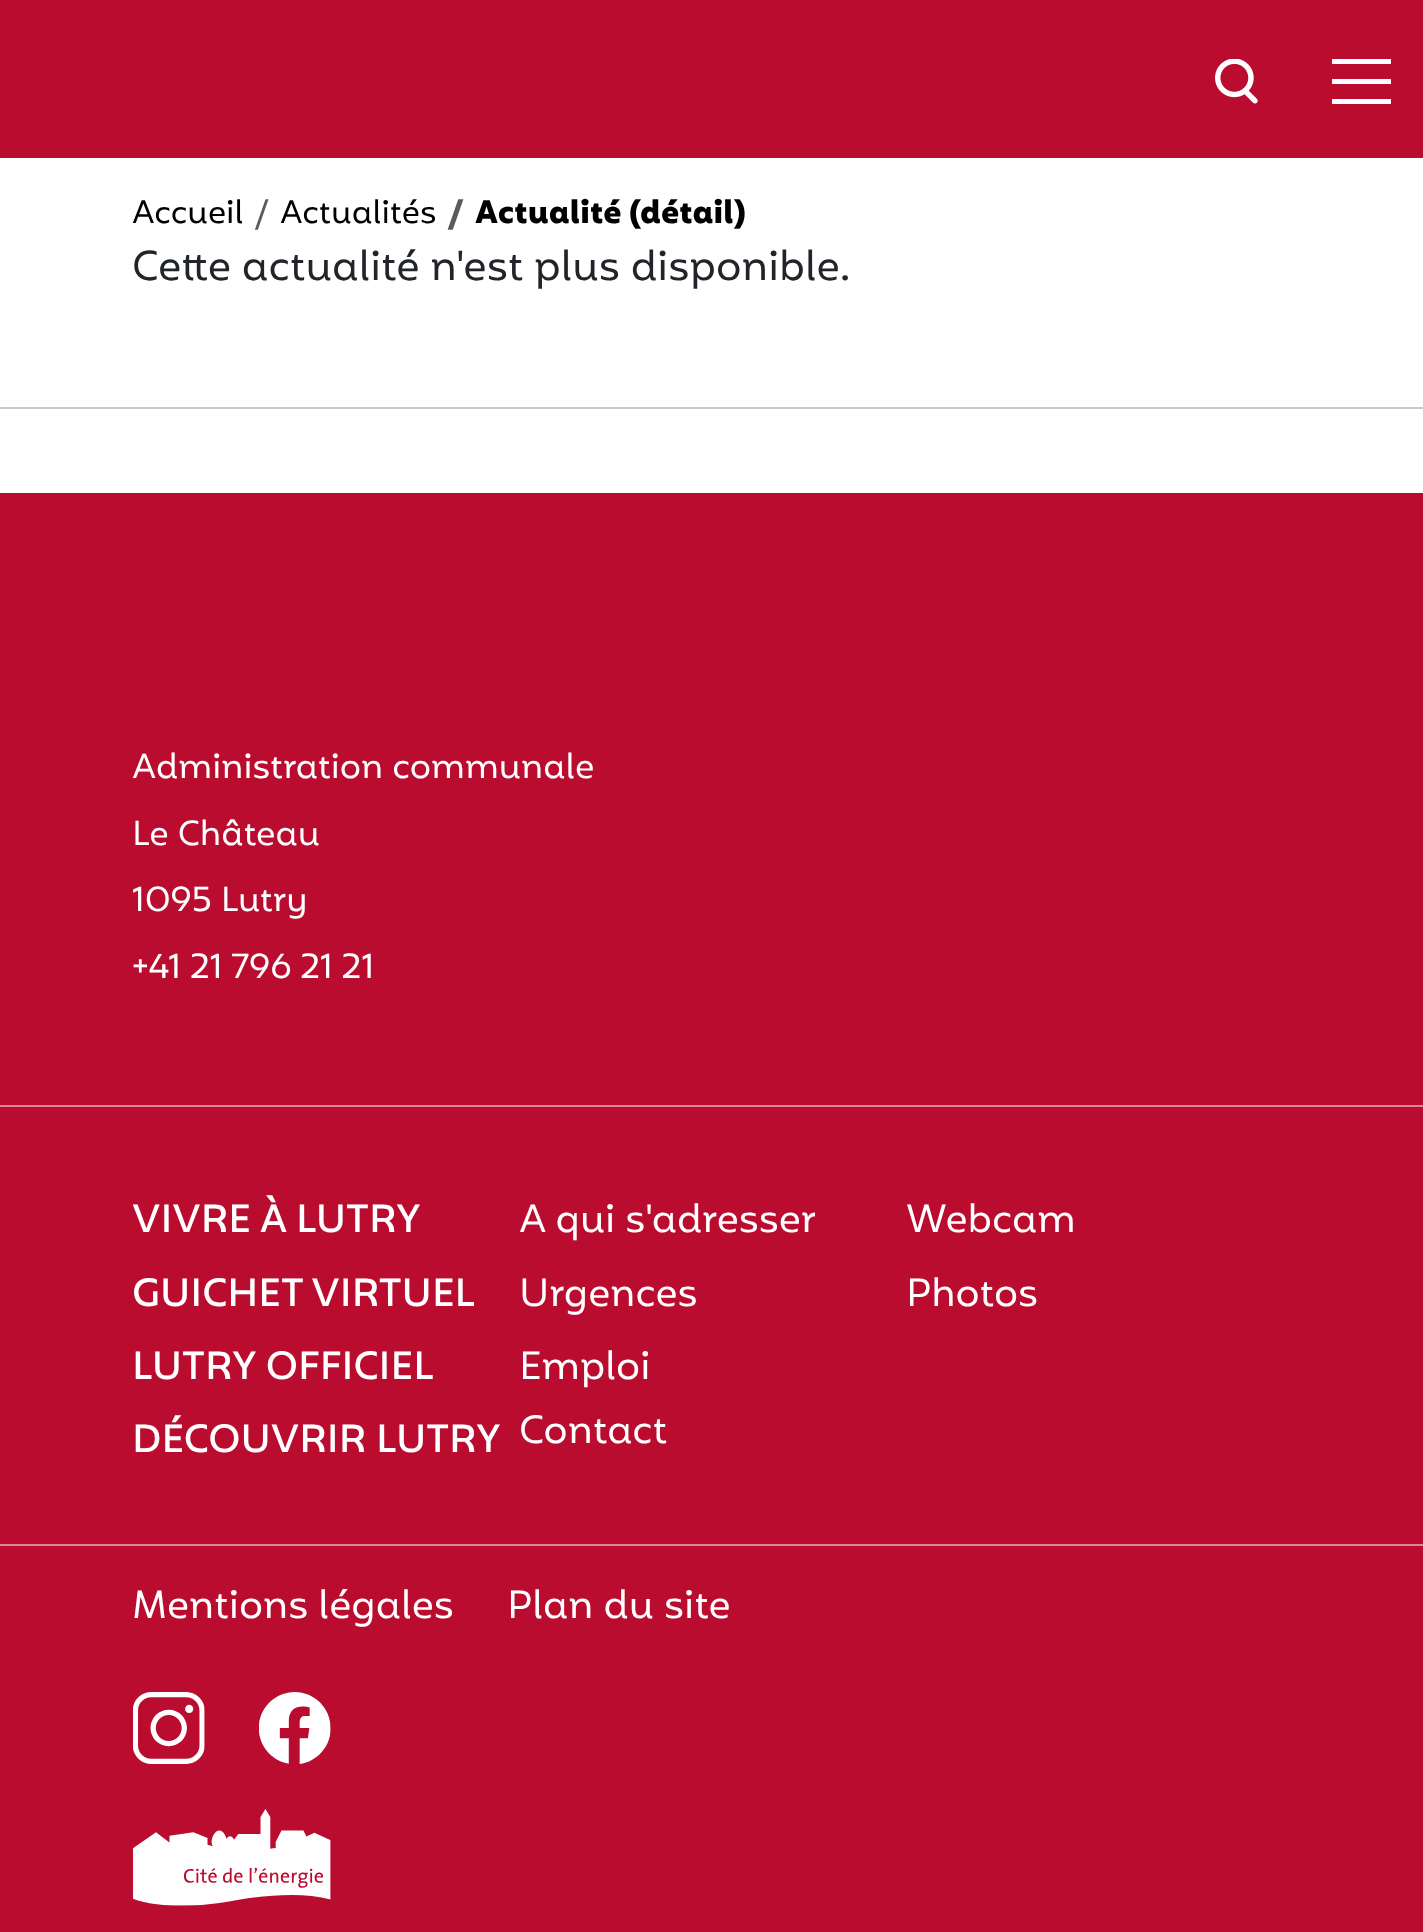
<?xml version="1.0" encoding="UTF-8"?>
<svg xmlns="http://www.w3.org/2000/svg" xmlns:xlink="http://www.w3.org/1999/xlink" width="1423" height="1932">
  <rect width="100%" height="100%" fill="#ffffff" />
  <rect width="1423" height="158" fill="#ba0c2f" />
  <image x="1215" y="59" width="43" height="45" xlink:href="image1.png" />
  <rect x="1332" y="59" width="59" height="5" fill="#ffffff" />
  <rect x="1332" y="79" width="59" height="5" fill="#ffffff" />
  <rect x="1332" y="99" width="59" height="5" fill="#ffffff" />
  <rect y="407" width="1423" height="2" fill="#c9caca" />
  <rect y="493" width="1423" height="1439" fill="#ba0c2f" />
  <rect y="1105" width="1423" height="2" fill="#dd8697" />
  <rect y="1544" width="1423" height="2" fill="#dd8697" />
  <image x="133" y="1692" width="72" height="72" xlink:href="image2.png" />
  <image x="259" y="1692" width="72" height="72" xlink:href="image3.png" />
  <image x="133" y="1809" width="198" height="97" xlink:href="image4.png" />
  <text x="132" y="223" style="font-family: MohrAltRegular; font-size: 31.5px; fill: #000000">Accueil</text>
  <text x="254" y="223" style="font-family: MohrAltRegular; font-size: 31.5px; fill: #595c5f">/</text>
  <text x="280" y="223" style="font-family: MohrAltRegular; font-size: 31.5px; fill: #000000">Actualités</text>
  <text x="447" y="223" style="font-family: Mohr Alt; font-size: 31.5px; font-weight: bold; fill: #595c5f">/</text>
  <text x="475" y="223" style="font-family: Mohr Alt; font-size: 31.5px; font-weight: bold; fill: #000000">Actualité (détail)</text>
  <text x="132" y="280" style="font-family: MohrAltRegular; font-size: 40.5px; fill: #212529">Cette actualité n'est plus disponible.</text>
  <text x="132" y="778" style="font-family: MohrAltRegular; font-size: 33.75px; fill: #ffffff">Administration communale</text>
  <text x="132" y="845" style="font-family: MohrAltRegular; font-size: 33.75px; fill: #ffffff">Le Château</text>
  <text x="132" y="911" style="font-family: MohrAltRegular; font-size: 33.75px; fill: #ffffff">1095 Lutry</text>
  <text x="132" y="978" style="font-family: MohrAltRegular; font-size: 33.75px; fill: #ffffff">+41 21 796 21 21</text>
  <text x="132" y="1232" style="font-family: Mohr Alt; font-size: 38.25px; font-weight: 500; fill: #ffffff">VIVRE À LUTRY</text>
  <text x="132" y="1306" style="font-family: Mohr Alt; font-size: 38.25px; font-weight: 500; fill: #ffffff">GUICHET VIRTUEL</text>
  <text x="132" y="1379" style="font-family: Mohr Alt; font-size: 38.25px; font-weight: 500; fill: #ffffff">LUTRY OFFICIEL</text>
  <text x="132" y="1452" style="font-family: Mohr Alt; font-size: 38.25px; font-weight: 500; fill: #ffffff">DÉCOUVRIR LUTRY</text>
  <text x="519" y="1232" style="font-family: MohrAltRegular; font-size: 38.25px; fill: #ffffff">A qui s'adresser</text>
  <text x="519" y="1306" style="font-family: MohrAltRegular; font-size: 38.25px; fill: #ffffff">Urgences</text>
  <text x="519" y="1379" style="font-family: MohrAltRegular; font-size: 38.25px; fill: #ffffff">Emploi</text>
  <text x="519" y="1443" style="font-family: MohrAltRegular; font-size: 38.25px; fill: #ffffff">Contact</text>
  <text x="906" y="1232" style="font-family: MohrAltRegular; font-size: 38.25px; fill: #ffffff">Webcam</text>
  <text x="906" y="1306" style="font-family: MohrAltRegular; font-size: 38.25px; fill: #ffffff">Photos</text>
  <text x="132" y="1618" style="font-family: MohrAltRegular; font-size: 38.25px; fill: #ffffff">Mentions légales</text>
  <text x="507" y="1618" style="font-family: MohrAltRegular; font-size: 38.25px; fill: #ffffff">Plan du site</text>
</svg>
